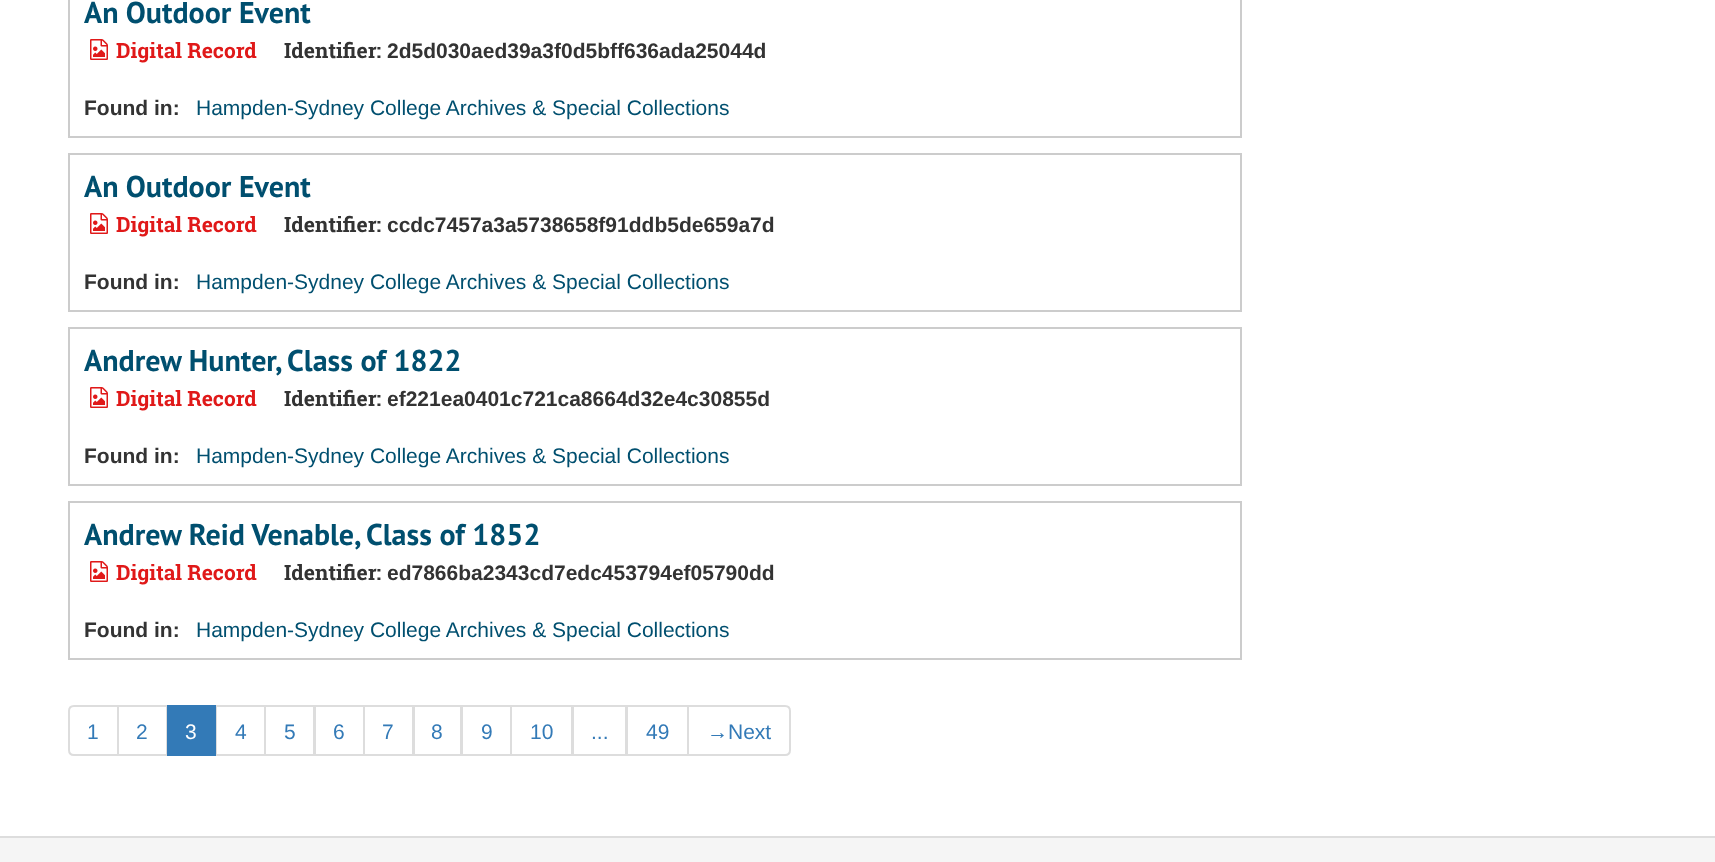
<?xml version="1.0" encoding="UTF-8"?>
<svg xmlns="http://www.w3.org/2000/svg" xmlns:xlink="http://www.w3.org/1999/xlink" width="1715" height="862">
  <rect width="100%" height="100%" fill="#ffffff" />
  <rect x="69" y="-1" width="1172" height="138" fill="none" stroke="#cccccc" stroke-width="2" />
  <image x="90" y="39" width="18" height="21" xlink:href="image1.png" />
  <rect x="69" y="154" width="1172" height="157" fill="none" stroke="#cccccc" stroke-width="2" />
  <image x="90" y="213" width="18" height="21" xlink:href="image1.png" />
  <rect x="69" y="328" width="1172" height="157" fill="none" stroke="#cccccc" stroke-width="2" />
  <image x="90" y="387" width="18" height="21" xlink:href="image1.png" />
  <rect x="69" y="502" width="1172" height="157" fill="none" stroke="#cccccc" stroke-width="2" />
  <image x="90" y="561" width="18" height="21" xlink:href="image1.png" />
  <path d="M 74 706 h 44 v 49 h -44 c -3 0 -5 -2 -5 -5 v -39 c 0 -3 2 -5 5 -5 z" fill="none" stroke="#dddddd" stroke-width="2" />
  <rect x="118" y="706" width="49" height="49" fill="none" stroke="#dddddd" stroke-width="2" />
  <rect x="216" y="706" width="49" height="49" fill="none" stroke="#dddddd" stroke-width="2" />
  <rect x="167" y="705" width="49" height="51" fill="#337ab7" />
  <rect x="265" y="706" width="49" height="49" fill="none" stroke="#dddddd" stroke-width="2" />
  <rect x="315" y="706" width="49" height="49" fill="none" stroke="#dddddd" stroke-width="2" />
  <rect x="364" y="706" width="49" height="49" fill="none" stroke="#dddddd" stroke-width="2" />
  <rect x="414" y="706" width="47" height="49" fill="none" stroke="#dddddd" stroke-width="2" />
  <rect x="462" y="706" width="49" height="49" fill="none" stroke="#dddddd" stroke-width="2" />
  <rect x="511" y="706" width="61" height="49" fill="none" stroke="#dddddd" stroke-width="2" />
  <rect x="573" y="706" width="53" height="49" fill="none" stroke="#dddddd" stroke-width="2" />
  <rect x="627" y="706" width="61" height="49" fill="none" stroke="#dddddd" stroke-width="2" />
  <path d="M 688 706 h 97 c 3 0 5 2 5 5 v 39 c 0 3 -2 5 -5 5 h -97 z" fill="#ffffff" stroke="#dddddd" stroke-width="2" />
  <rect y="838" width="1715" height="24" fill="#f5f5f5" />
  <rect y="836" width="1715" height="2" fill="#dddddd" />
  <text x="84" y="23" style="font-family: PT Sans; font-size: 30px; font-weight: bold; fill: #004f6f">An Outdoor Event</text>
  <text x="116" y="58" style="font-family: Roboto Slab; font-size: 21px; font-weight: bold; fill: #e01919">Digital Record</text>
  <text x="284" y="58" style="font-family: Roboto Slab; font-size: 21px; font-weight: bold; fill: #333333">Identifier:</text>
  <text x="387" y="58" style="font-family: Liberation Sans; font-size: 21px; font-weight: bold; fill: #333333">2d5d030aed39a3f0d5bff636ada25044d</text>
  <text x="84" y="115" style="font-family: Liberation Sans; font-size: 21px; font-weight: bold; fill: #333333">Found in:</text>
  <text x="196" y="115" style="font-family: Liberation Sans; font-size: 21px; fill: #004f6f">Hampden-Sydney College Archives &amp; Special Collections</text>
  <text x="84" y="197" style="font-family: PT Sans; font-size: 30px; font-weight: bold; fill: #004f6f">An Outdoor Event</text>
  <text x="116" y="232" style="font-family: Roboto Slab; font-size: 21px; font-weight: bold; fill: #e01919">Digital Record</text>
  <text x="284" y="232" style="font-family: Roboto Slab; font-size: 21px; font-weight: bold; fill: #333333">Identifier:</text>
  <text x="387" y="232" style="font-family: Liberation Sans; font-size: 21px; font-weight: bold; fill: #333333">ccdc7457a3a5738658f91ddb5de659a7d</text>
  <text x="84" y="289" style="font-family: Liberation Sans; font-size: 21px; font-weight: bold; fill: #333333">Found in:</text>
  <text x="196" y="289" style="font-family: Liberation Sans; font-size: 21px; fill: #004f6f">Hampden-Sydney College Archives &amp; Special Collections</text>
  <text x="84" y="371" style="font-family: PT Sans; font-size: 30px; font-weight: bold; fill: #004f6f">Andrew Hunter, Class of 1822</text>
  <text x="116" y="406" style="font-family: Roboto Slab; font-size: 21px; font-weight: bold; fill: #e01919">Digital Record</text>
  <text x="284" y="406" style="font-family: Roboto Slab; font-size: 21px; font-weight: bold; fill: #333333">Identifier:</text>
  <text x="387" y="406" style="font-family: Liberation Sans; font-size: 21px; font-weight: bold; fill: #333333">ef221ea0401c721ca8664d32e4c30855d</text>
  <text x="84" y="463" style="font-family: Liberation Sans; font-size: 21px; font-weight: bold; fill: #333333">Found in:</text>
  <text x="196" y="463" style="font-family: Liberation Sans; font-size: 21px; fill: #004f6f">Hampden-Sydney College Archives &amp; Special Collections</text>
  <text x="84" y="545" style="font-family: PT Sans; font-size: 30px; font-weight: bold; fill: #004f6f">Andrew Reid Venable, Class of 1852</text>
  <text x="116" y="580" style="font-family: Roboto Slab; font-size: 21px; font-weight: bold; fill: #e01919">Digital Record</text>
  <text x="284" y="580" style="font-family: Roboto Slab; font-size: 21px; font-weight: bold; fill: #333333">Identifier:</text>
  <text x="387" y="580" style="font-family: Liberation Sans; font-size: 21px; font-weight: bold; fill: #333333">ed7866ba2343cd7edc453794ef05790dd</text>
  <text x="84" y="637" style="font-family: Liberation Sans; font-size: 21px; font-weight: bold; fill: #333333">Found in:</text>
  <text x="196" y="637" style="font-family: Liberation Sans; font-size: 21px; fill: #004f6f">Hampden-Sydney College Archives &amp; Special Collections</text>
  <text x="87" y="739" style="font-family: Liberation Sans; font-size: 21px; fill: #337ab7">1</text>
  <text x="136" y="739" style="font-family: Liberation Sans; font-size: 21px; fill: #337ab7">2</text>
  <text x="185" y="739" style="font-family: Liberation Sans; font-size: 21px; fill: #ffffff">3</text>
  <text x="235" y="739" style="font-family: Liberation Sans; font-size: 21px; fill: #337ab7">4</text>
  <text x="284" y="739" style="font-family: Liberation Sans; font-size: 21px; fill: #337ab7">5</text>
  <text x="333" y="739" style="font-family: Liberation Sans; font-size: 21px; fill: #337ab7">6</text>
  <text x="382" y="739" style="font-family: Liberation Sans; font-size: 21px; fill: #337ab7">7</text>
  <text x="431" y="739" style="font-family: Liberation Sans; font-size: 21px; fill: #337ab7">8</text>
  <text x="481" y="739" style="font-family: Liberation Sans; font-size: 21px; fill: #337ab7">9</text>
  <text x="530" y="739" style="font-family: Liberation Sans; font-size: 21px; fill: #337ab7">10</text>
  <text x="591" y="739" style="font-family: Liberation Sans; font-size: 21px; fill: #337ab7">...</text>
  <text x="646" y="739" style="font-family: Liberation Sans; font-size: 21px; fill: #337ab7">49</text>
  <text x="707" y="739" style="font-family: Liberation Sans; font-size: 21px; fill: #337ab7">→Next</text>
</svg>
